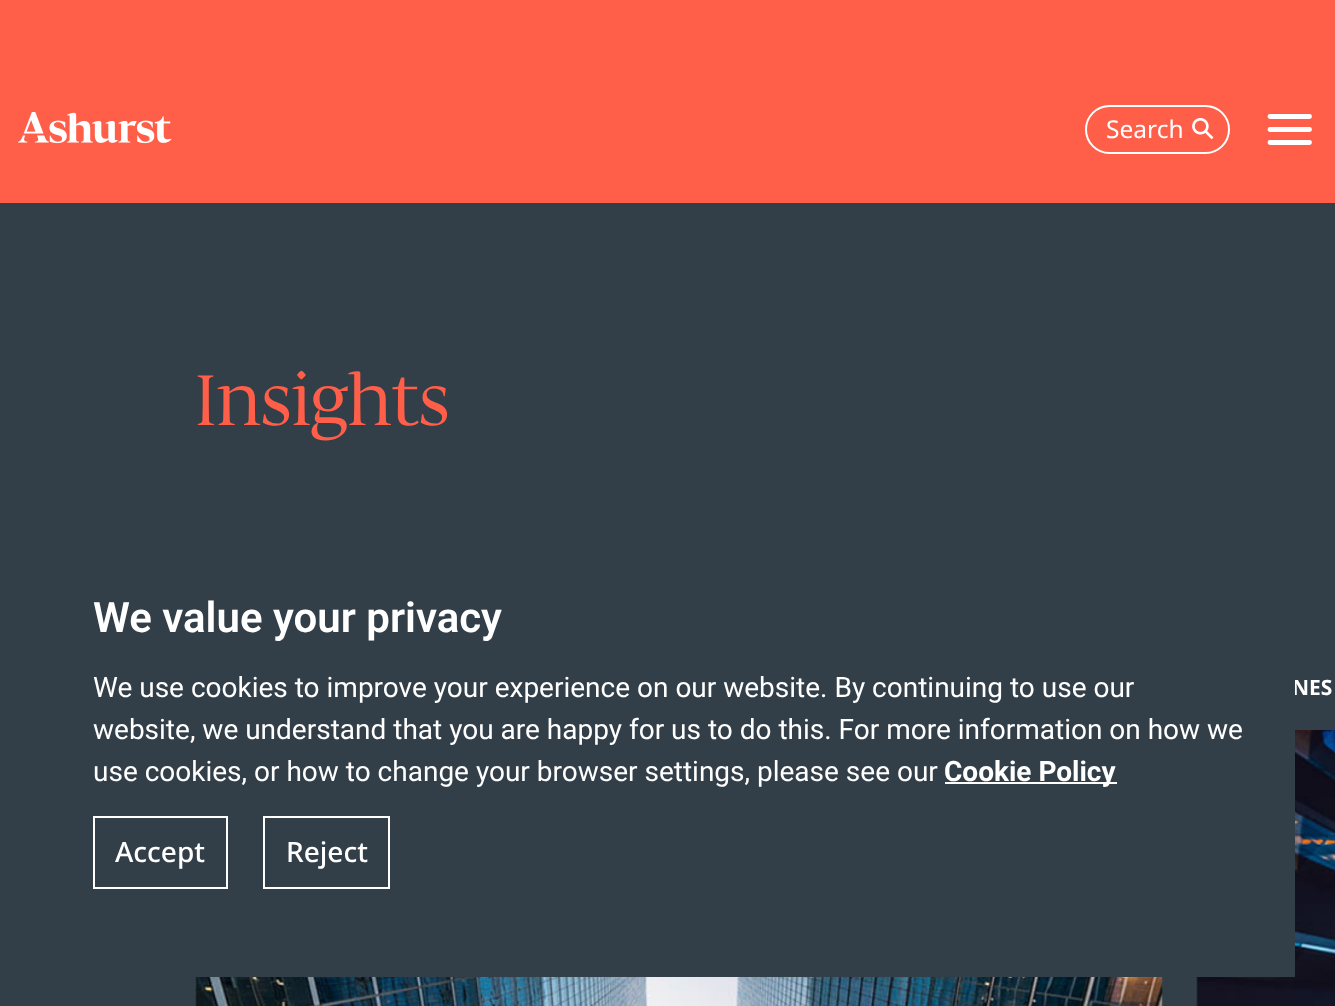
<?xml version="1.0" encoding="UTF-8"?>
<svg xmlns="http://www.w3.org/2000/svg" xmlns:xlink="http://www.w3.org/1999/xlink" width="1335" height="1006">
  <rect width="100%" height="100%" fill="#ff5f49" />
  <image x="18" y="112" width="154" height="32" xlink:href="image1.png" />
  <rect x="1086" y="106" width="143" height="47" rx="23.5" fill="none" stroke="#ffffff" stroke-width="2" />
  <image x="1192" y="118" width="22" height="22" xlink:href="image2.png" />
  <path d="M 1270 116.5 h 39.5 m -39.5 13 h 39.5 m -39.5 13 h 39.5" fill="none" stroke="#ffffff" stroke-width="4.9" stroke-linecap="round" />
  <rect y="203" width="1335" height="803" fill="#333f48" />
  <image x="1196" y="730" width="139" height="276" xlink:href="image3.png" />
  <image x="195" y="977" width="968" height="29" xlink:href="image4.png" />
  <rect x="945" y="782" width="172" height="2" fill="#ffffff" />
  <rect x="94" y="817" width="133" height="71" fill="none" stroke="#ffffff" stroke-width="2" />
  <rect x="264" y="817" width="125" height="71" fill="none" stroke="#ffffff" stroke-width="2" />
  <text x="1106" y="138" style="font-family: Noto Sans; font-size: 24.5px; fill: #ffffff">Search</text>
  <text x="195" y="425" style="font-family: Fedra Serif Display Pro; font-size: 70px; fill: #ff5f49">Insights</text>
  <text x="1292" y="695" style="font-family: Noto Sans; font-size: 21px; font-weight: bold; fill: #ffffff">NES</text>
  <rect x="1196" y="680" width="99" height="297" fill="#333f48" />
  <text x="93" y="632" style="font-family: Roboto; font-size: 42px; font-weight: 600; fill: #ffffff">We value your privacy</text>
  <text x="93" y="697" style="font-family: Roboto; font-size: 28px; fill: #ffffff">We use cookies to improve your experience on our website. By continuing to use our</text>
  <text x="93" y="739" style="font-family: Roboto; font-size: 28px; fill: #ffffff">website, we understand that you are happy for us to do this. For more information on how we</text>
  <text x="93" y="781" style="font-family: Roboto; font-size: 28px; fill: #ffffff">use cookies, or how to change your browser settings, please see our</text>
  <text x="944" y="781" style="font-family: Roboto; font-size: 28px; font-weight: bold; fill: #ffffff">Cookie Policy</text>
  <text x="115" y="862" style="font-family: Noto Sans; font-size: 28px; font-weight: 500; fill: #ffffff">Accept</text>
  <text x="286" y="862" style="font-family: Noto Sans; font-size: 28px; font-weight: 500; fill: #ffffff">Reject</text>
</svg>
